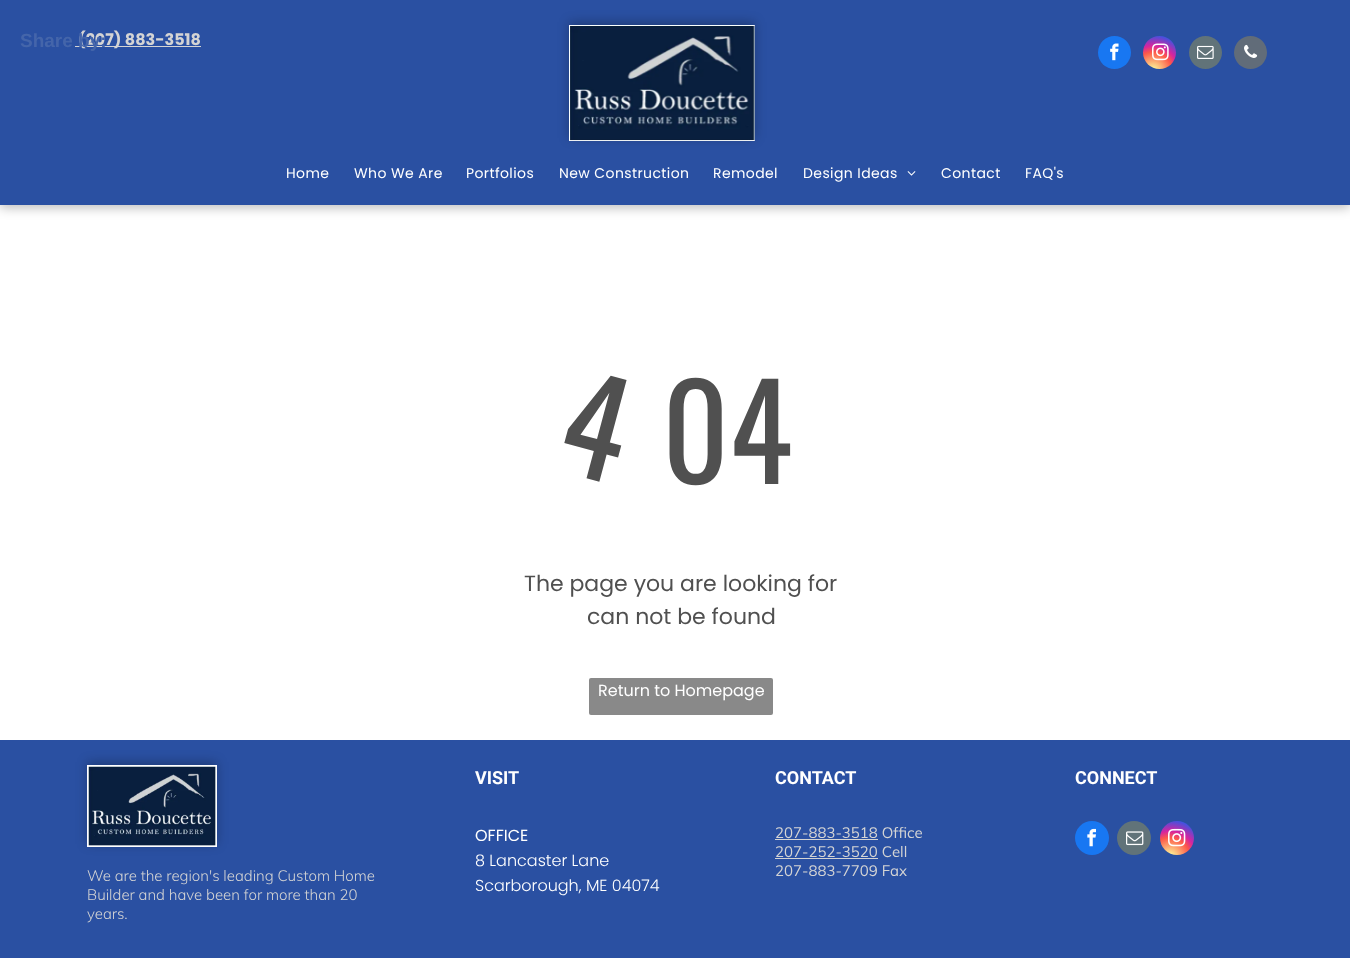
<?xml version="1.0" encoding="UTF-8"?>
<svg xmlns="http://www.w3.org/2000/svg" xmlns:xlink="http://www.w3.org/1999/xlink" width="1350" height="978">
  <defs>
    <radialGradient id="g1" gradientUnits="userSpaceOnUse" cx="1153" cy="71" r="42"><stop offset="0" stop-color="#fdf497" /><stop offset="0.05" stop-color="#fdf497" /><stop offset="0.45" stop-color="#fd5949" /><stop offset="0.6" stop-color="#d6249f" /><stop offset="0.9" stop-color="#285aeb" /></radialGradient>
    <radialGradient id="g2" gradientUnits="userSpaceOnUse" cx="1170" cy="857" r="43"><stop offset="0" stop-color="#fdf497" /><stop offset="0.05" stop-color="#fdf497" /><stop offset="0.45" stop-color="#fd5949" /><stop offset="0.6" stop-color="#d6249f" /><stop offset="0.9" stop-color="#285aeb" /></radialGradient>
  </defs>
  <rect width="100%" height="100%" fill="#ffffff" />
  <rect y="3" width="1350" height="205" fill="#000000" fill-opacity="0.25" filter="blur(5.5px)" />
  <rect width="1350" height="205" fill="#2a50a2" />
  <rect x="75" y="46" width="126" height="1" fill="#d4d4d4" />
  <rect x="569" y="22" width="186" height="116" fill="#000000" fill-opacity="0.25" filter="blur(5.5px)" />
  <image x="569" y="25" width="186" height="116" xlink:href="image1.png" />
  <circle cx="1114.5" cy="52.5" r="16.5" fill="#1877f2" />
  <image x="1110" y="43" width="9" height="18" xlink:href="image2.png" />
  <circle cx="1159.5" cy="52.5" r="16.5" fill="url(#g1)" />
  <image x="1152" y="43" width="17" height="18" xlink:href="image3.png" />
  <circle cx="1205.5" cy="52.5" r="16.5" fill="#617379" />
  <image x="1197" y="45" width="17" height="14" xlink:href="image4.png" />
  <circle cx="1250.5" cy="52.5" r="16.5" fill="#616c79" />
  <image x="1244" y="44" width="14" height="14" xlink:href="image5.png" />
  <image x="907" y="171" width="9" height="5" xlink:href="image6.png" />
  <rect x="589" y="678" width="184" height="37" rx="2" fill="#898989" />
  <rect y="740" width="1350" height="218" fill="#2a50a2" />
  <rect x="775" y="839" width="103" height="1" fill="#d4d4d4" />
  <rect x="775" y="858" width="103" height="1" fill="#d4d4d4" />
  <circle cx="1092" cy="838" r="17" fill="#1877f2" />
  <image x="1087" y="828" width="9" height="19" xlink:href="image7.png" />
  <circle cx="1134" cy="838" r="17" fill="#617379" />
  <image x="1126" y="831" width="18" height="15" xlink:href="image8.png" />
  <circle cx="1177" cy="838" r="17" fill="url(#g2)" />
  <image x="1168" y="828" width="18" height="19" xlink:href="image9.png" />
  <rect x="87" y="762" width="130" height="82" fill="#000000" fill-opacity="0.25" filter="blur(5.5px)" />
  <rect x="87.5" y="765.5" width="129" height="81" fill="none" stroke="#ffffff" />
  <image x="88" y="766" width="128" height="80" xlink:href="image10.png" />
  <text x="78" y="45" style="font-family: Poppins; font-size: 16px; font-weight: bold; fill: #d4d4d4">(207) 883-3518</text>
  <text x="20" y="47" style="font-family: Liberation Sans; font-size: 19px; font-weight: bold; fill: #4465aa">Share by:</text>
  <text x="286" y="178" style="font-family: Poppins; font-size: 14px; letter-spacing: 0.4px; fill: #ffffff">Home</text>
  <text x="354" y="178" style="font-family: Poppins; font-size: 14px; letter-spacing: 0.4px; fill: #ffffff">Who We Are</text>
  <text x="466" y="178" style="font-family: Poppins; font-size: 14px; letter-spacing: 0.4px; fill: #ffffff">Portfolios</text>
  <text x="559" y="178" style="font-family: Poppins; font-size: 14px; letter-spacing: 0.4px; fill: #ffffff">New Construction</text>
  <text x="713" y="178" style="font-family: Poppins; font-size: 14px; letter-spacing: 0.4px; fill: #ffffff">Remodel</text>
  <text x="803" y="178" style="font-family: Poppins; font-size: 14px; letter-spacing: 0.4px; fill: #ffffff">Design Ideas</text>
  <text x="941" y="178" style="font-family: Poppins; font-size: 14px; letter-spacing: 0.4px; fill: #ffffff">Contact</text>
  <text x="1025" y="178" style="font-family: Poppins; font-size: 14px; letter-spacing: 0.4px; fill: #ffffff">FAQ's</text>
  <text x="552" y="469" transform="rotate(15 552 469)" style="font-family: Oswald; font-size: 130px; fill: #505050">4</text>
  <text x="662" y="484" style="font-family: Oswald; font-size: 130px; fill: #505050">04</text>
  <text x="524" y="591" style="font-family: Poppins; font-size: 22px; fill: #505050">The page you are looking for</text>
  <text x="587" y="624" style="font-family: Poppins; font-size: 22px; fill: #505050">can not be found</text>
  <text x="598" y="696" style="font-family: Poppins; font-size: 16px; fill: #ffffff">Return to Homepage</text>
  <text x="475" y="784" style="font-family: Roboto; font-size: 18px; font-weight: bold; fill: #ffffff">VISIT</text>
  <text x="475" y="841" style="font-family: Poppins; font-size: 16px; fill: #ffffff">OFFICE</text>
  <text x="475" y="866" style="font-family: Poppins; font-size: 16px; font-weight: 300; fill: #ffffff">8 Lancaster Lane</text>
  <text x="475" y="891" style="font-family: Poppins; font-size: 16px; font-weight: 300; fill: #ffffff">Scarborough, ME 04074</text>
  <text x="775" y="784" style="font-family: Roboto; font-size: 18px; font-weight: bold; fill: #ffffff">CONTACT</text>
  <text x="775" y="838" style="font-family: Muli; font-size: 15px; fill: #d4d4d4">207-883-3518 Office</text>
  <text x="775" y="857" style="font-family: Muli; font-size: 15px; fill: #d4d4d4">207-252-3520 Cell</text>
  <text x="775" y="876" style="font-family: Muli; font-size: 15px; fill: #d4d4d4">207-883-7709 Fax</text>
  <text x="1075" y="784" style="font-family: Roboto; font-size: 18px; font-weight: bold; fill: #ffffff">CONNECT</text>
  <text x="87" y="881" style="font-family: Muli; font-size: 15px; font-weight: 300; fill: #d4d4d4">We are the region's leading Custom Home</text>
  <text x="87" y="900" style="font-family: Muli; font-size: 15px; font-weight: 300; fill: #d4d4d4">Builder and have been for more than 20</text>
  <text x="87" y="919" style="font-family: Muli; font-size: 15px; font-weight: 300; fill: #d4d4d4">years.</text>
</svg>
